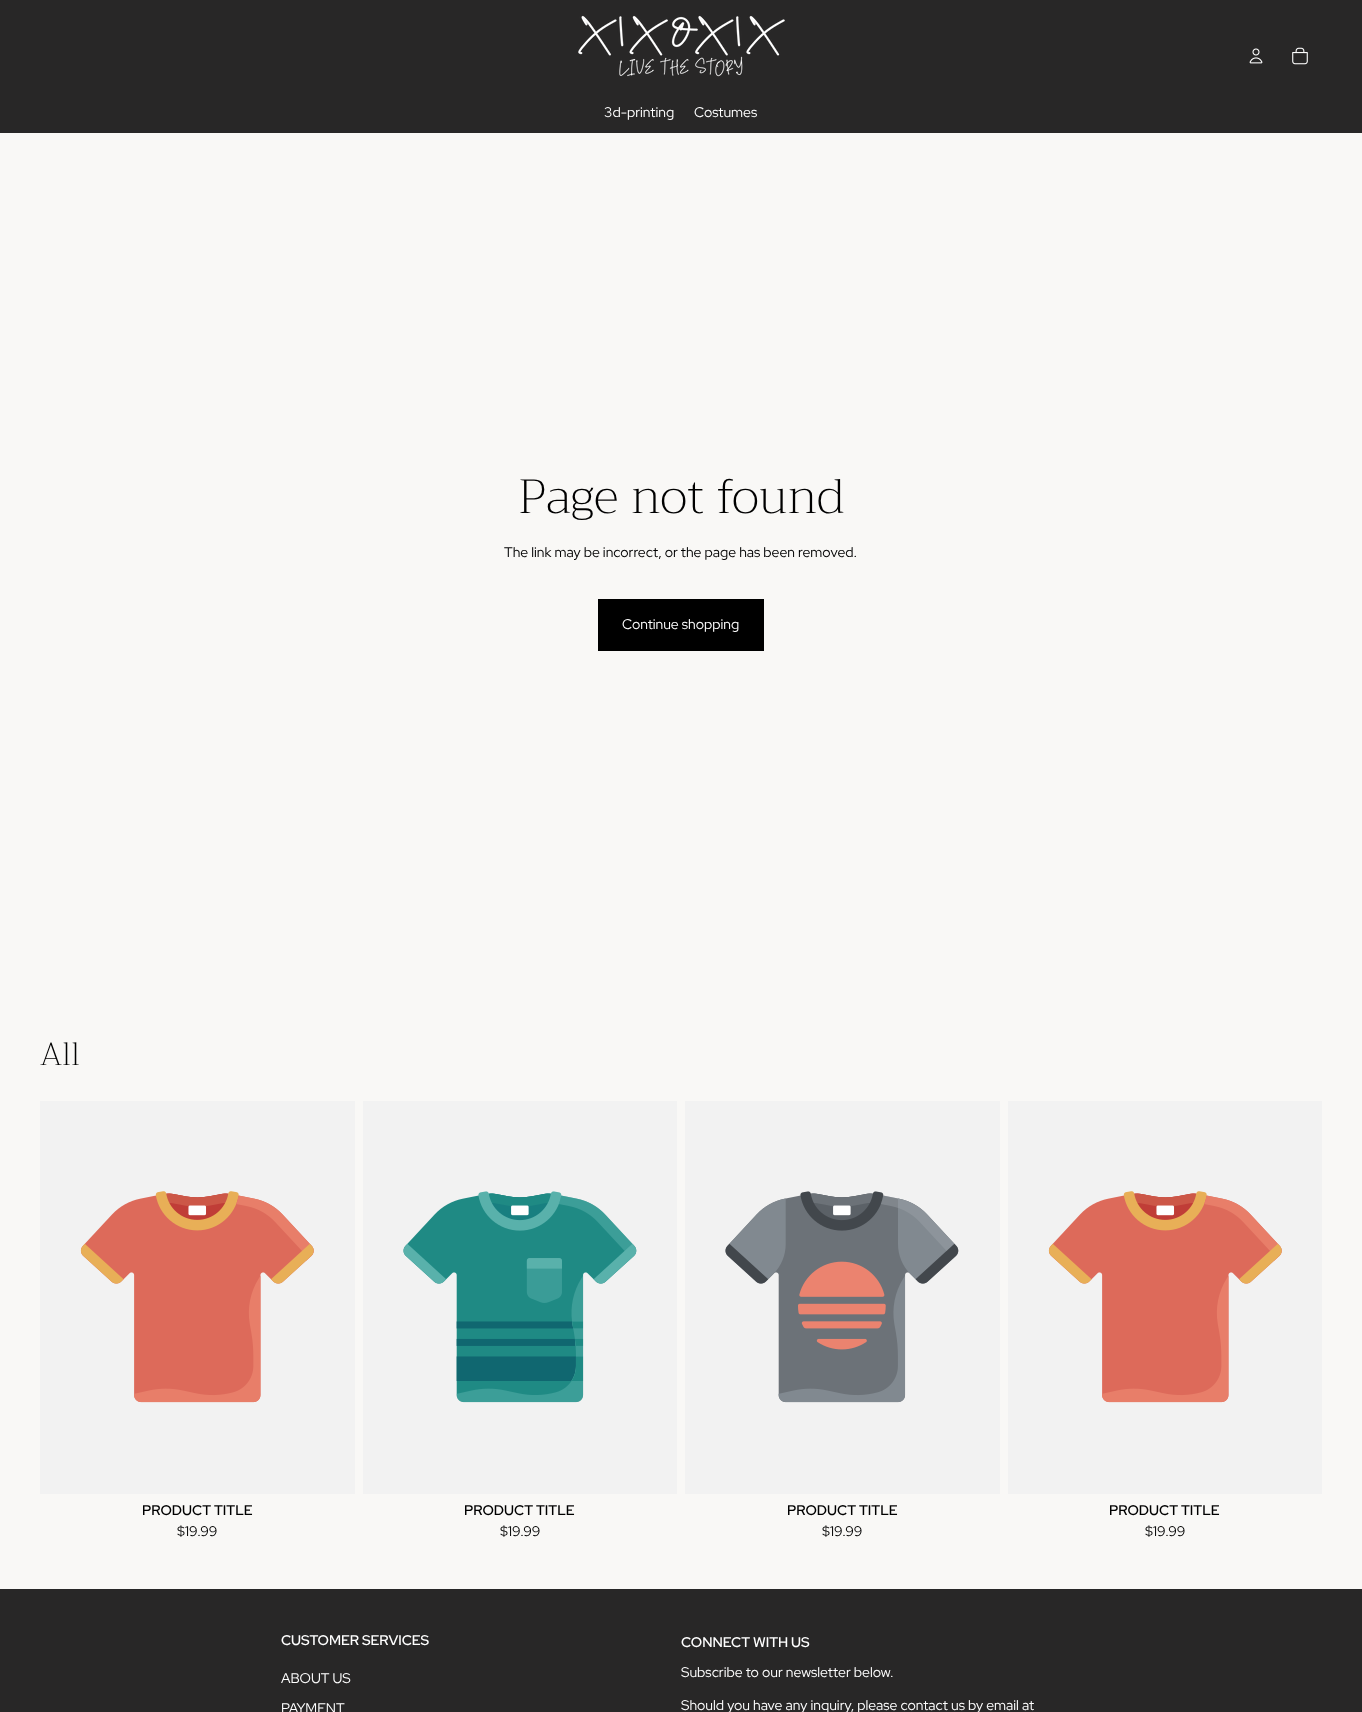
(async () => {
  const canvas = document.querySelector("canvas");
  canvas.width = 1362;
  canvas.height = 1712;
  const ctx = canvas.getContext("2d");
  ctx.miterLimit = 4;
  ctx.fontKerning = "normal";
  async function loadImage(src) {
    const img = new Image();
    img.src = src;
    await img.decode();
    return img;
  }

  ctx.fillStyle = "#f9f8f6";
  ctx.fillRect(0, 0, 1362, 1712);
  ctx.fillStyle = "#282727";
  ctx.fillRect(0, 0, 1362, 133);
  ctx.drawImage(await loadImage("img/1.png"), 578, 15, 207, 62);
  ctx.drawImage(await loadImage("img/2.png"), 1249, 48, 14, 16);
  ctx.drawImage(await loadImage("img/3.png"), 1292, 47, 16, 18);
  ctx.fillStyle = "#000000";
  ctx.fillRect(598, 599, 166, 52);
  ctx.drawImage(await loadImage("img/4.png"), 40, 1101, 315, 393);
  ctx.drawImage(await loadImage("img/5.png"), 363, 1101, 314, 393);
  ctx.drawImage(await loadImage("img/6.png"), 685, 1101, 315, 393);
  ctx.drawImage(await loadImage("img/7.png"), 1008, 1101, 314, 393);
  ctx.fillStyle = "#282727";
  ctx.fillRect(0, 1589, 1362, 123);
  ctx.font = "14px Red Hat Display";
  ctx.fillStyle = "#ffffff";
  ctx.fillText("3d-printing", 604, 117);
  ctx.fillText("Costumes", 694, 117);
  ctx.font = "300 48px Trirong";
  ctx.fillStyle = "#000000";
  ctx.fillText("Page not found", 518, 513);
  ctx.font = "14px Red Hat Display";
  ctx.fillText("The link may be incorrect, or the page has been removed.", 504, 557);
  ctx.fillStyle = "#ffffff";
  ctx.fillText("Continue shopping", 622, 629);
  ctx.font = "300 32px Trirong";
  ctx.fillStyle = "#000000";
  ctx.fillText("All", 40, 1065);
  ctx.font = "600 14px Red Hat Display";
  ctx.fillText("PRODUCT TITLE", 142, 1515);
  ctx.font = "14px Red Hat Display";
  ctx.fillText("$19.99", 177, 1536);
  ctx.font = "600 14px Red Hat Display";
  ctx.fillText("PRODUCT TITLE", 464, 1515);
  ctx.font = "14px Red Hat Display";
  ctx.fillText("$19.99", 500, 1536);
  ctx.font = "600 14px Red Hat Display";
  ctx.fillText("PRODUCT TITLE", 787, 1515);
  ctx.font = "14px Red Hat Display";
  ctx.fillText("$19.99", 822, 1536);
  ctx.font = "600 14px Red Hat Display";
  ctx.fillText("PRODUCT TITLE", 1109, 1515);
  ctx.font = "14px Red Hat Display";
  ctx.fillText("$19.99", 1145, 1536);
  ctx.font = "600 14px Red Hat Display";
  ctx.fillStyle = "#ffffff";
  ctx.fillText("CUSTOMER SERVICES", 281, 1645);
  ctx.font = "14px Red Hat Display";
  ctx.fillText("ABOUT US", 281, 1683);
  ctx.fillText("PAYMENT", 281, 1713);
  ctx.font = "600 14px Red Hat Display";
  ctx.fillText("CONNECT WITH US", 681, 1647);
  ctx.font = "14px Red Hat Display";
  ctx.fillText("Subscribe to our newsletter below.", 681, 1677);
  ctx.fillText("Should you have any inquiry, please contact us by email at", 681, 1710);
})();
